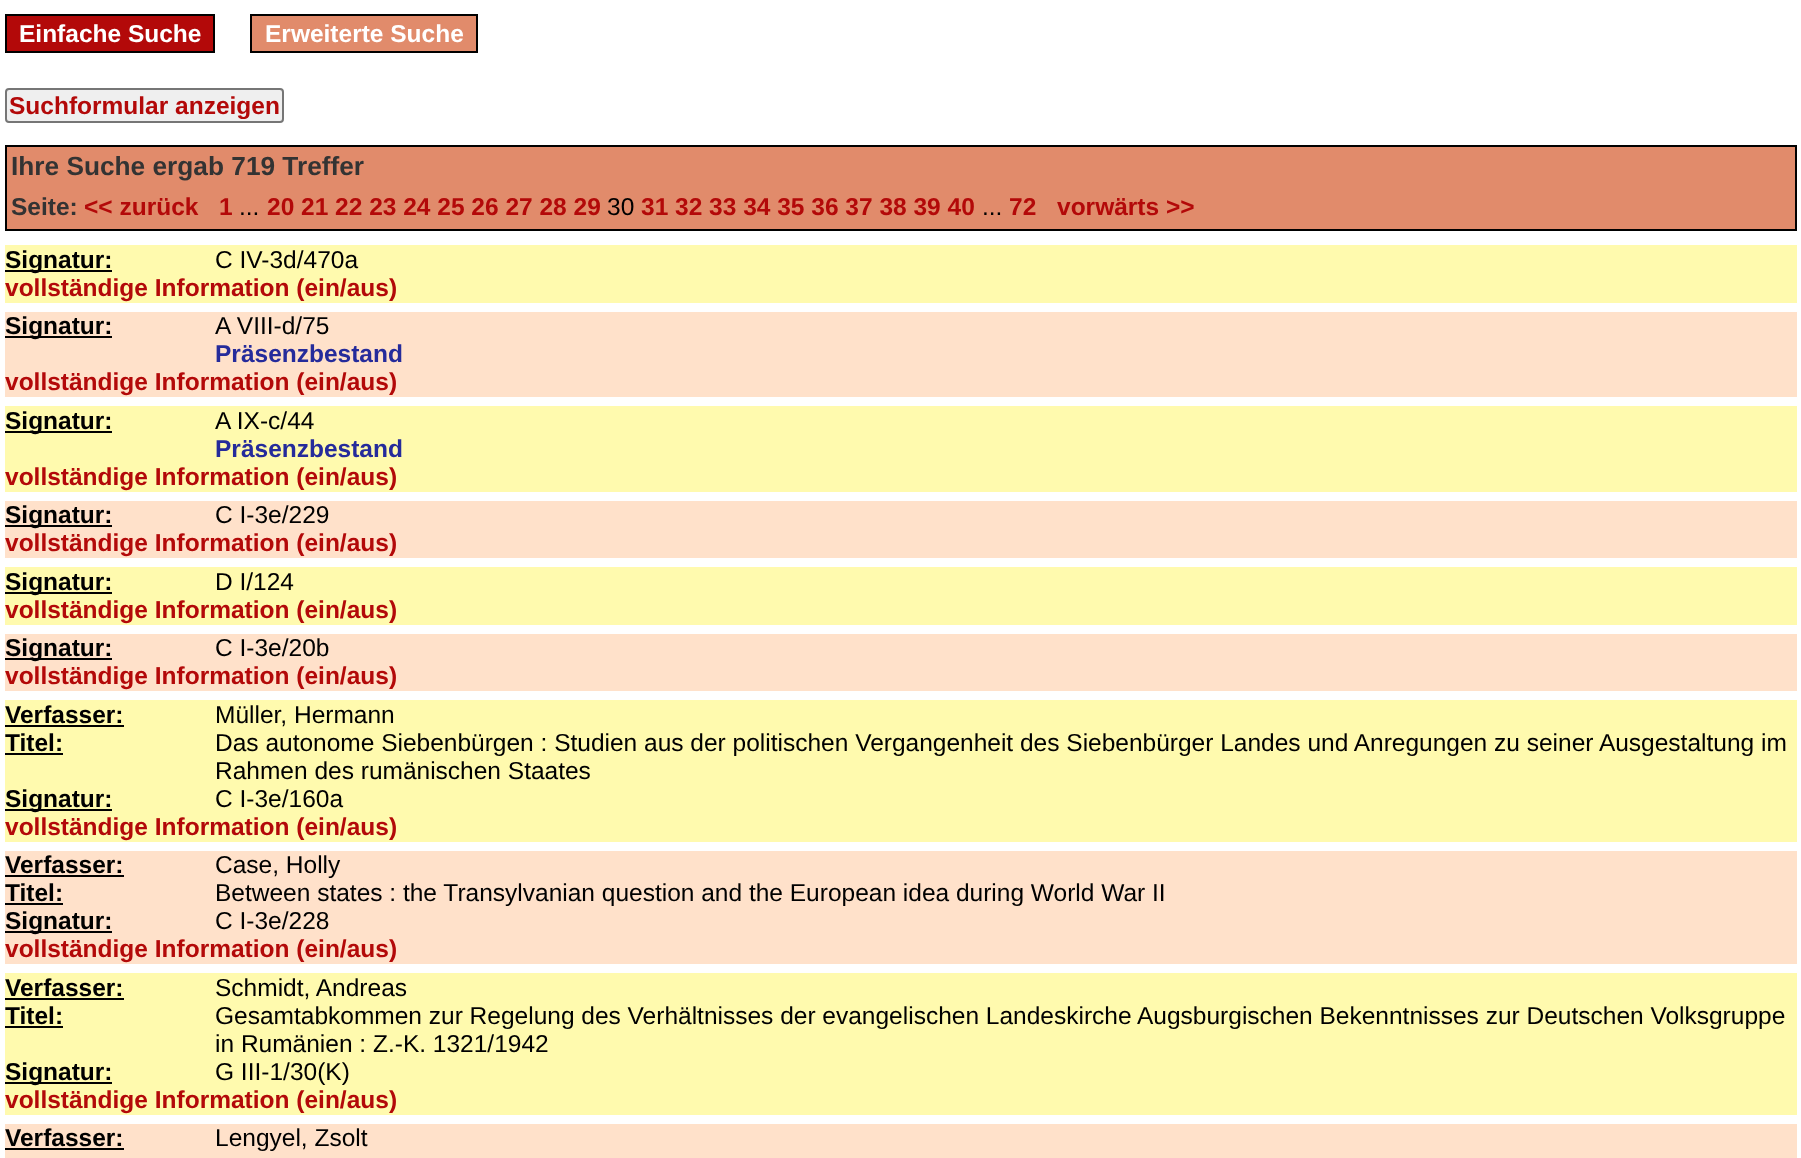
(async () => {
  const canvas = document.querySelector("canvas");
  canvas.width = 1801;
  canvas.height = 1158;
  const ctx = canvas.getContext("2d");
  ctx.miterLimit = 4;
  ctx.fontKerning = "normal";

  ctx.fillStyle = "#ffffff";
  ctx.fillRect(0, 0, 1801, 1158);
  ctx.fillStyle = "#b30909";
  ctx.beginPath();
  ctx.rect(6, 15, 208, 37);
  ctx.fill();
  ctx.strokeStyle = "#000000";
  ctx.lineWidth = 2;
  ctx.stroke();
  ctx.fillStyle = "#e18b6b";
  ctx.beginPath();
  ctx.rect(251, 15, 226, 37);
  ctx.fill();
  ctx.stroke();
  ctx.fillStyle = "#efefef";
  ctx.beginPath();
  ctx.roundRect(6, 89, 277, 33, 3);
  ctx.fill();
  ctx.strokeStyle = "#767676";
  ctx.stroke();
  ctx.fillStyle = "#e18b6b";
  ctx.beginPath();
  ctx.rect(6, 146, 1790, 84);
  ctx.fill();
  ctx.strokeStyle = "#000000";
  ctx.stroke();
  for (const [x, y, w, h, color] of [
    [5, 245, 1792, 58, "#fffaae"],
    [5, 270, 107, 2, "#000000"],
    [5, 312, 1792, 85, "#ffe1ca"],
    [5, 336, 107, 2, "#000000"],
    [5, 406, 1792, 86, "#fffaae"],
    [5, 431, 107, 2, "#000000"],
    [5, 501, 1792, 57, "#ffe1ca"],
    [5, 525, 107, 2, "#000000"],
    [5, 567, 1792, 58, "#fffaae"],
    [5, 592, 107, 2, "#000000"],
    [5, 634, 1792, 57, "#ffe1ca"],
    [5, 658, 107, 2, "#000000"],
    [5, 700, 1792, 142, "#fffaae"],
    [5, 725, 119, 2, "#000000"],
    [5, 753, 58, 2, "#000000"],
    [5, 809, 107, 2, "#000000"],
    [5, 851, 1792, 113, "#ffe1ca"],
    [5, 875, 119, 2, "#000000"],
    [5, 903, 58, 2, "#000000"],
    [5, 931, 107, 2, "#000000"],
    [5, 973, 1792, 142, "#fffaae"],
    [5, 998, 119, 2, "#000000"],
    [5, 1026, 58, 2, "#000000"],
    [5, 1082, 107, 2, "#000000"],
    [5, 1124, 1792, 34, "#ffe1ca"],
    [5, 1148, 119, 2, "#000000"],
  ]) {
    ctx.fillStyle = color;
    ctx.fillRect(x, y, w, h);
  }
  ctx.font = "bold 24.5px Liberation Sans";
  ctx.fillStyle = "#ffffff";
  ctx.fillText("Einfache Suche", 19, 42);
  ctx.fillText("Erweiterte Suche", 265, 42);
  ctx.save();
  ctx.beginPath();
  ctx.rect(9, 91, 271, 28);
  ctx.clip();
  ctx.fillStyle = "#b30909";
  ctx.fillText("Suchformular anzeigen", 9, 114);
  ctx.restore();
  ctx.font = "bold 26.25px Liberation Sans";
  ctx.fillStyle = "#333333";
  ctx.fillText("Ihre Suche ergab 719 Treffer", 11, 175);
  ctx.font = "bold 24.5px Liberation Sans";
  ctx.fillText("Seite:", 11, 215);
  ctx.fillStyle = "#b30909";
  ctx.fillText("<< zurück", 84, 215);
  ctx.fillText("1", 219, 215);
  ctx.font = "24.5px Liberation Sans";
  ctx.fillStyle = "#000000";
  ctx.fillText("...", 239, 215);
  ctx.font = "bold 24.5px Liberation Sans";
  ctx.fillStyle = "#b30909";
  ctx.fillText("20 21 22 23 24 25 26 27 28 29", 267, 215);
  ctx.font = "24.5px Liberation Sans";
  ctx.fillStyle = "#000000";
  ctx.fillText("30", 607, 215);
  ctx.font = "bold 24.5px Liberation Sans";
  ctx.fillStyle = "#b30909";
  ctx.fillText("31 32 33 34 35 36 37 38 39 40", 641, 215);
  ctx.font = "24.5px Liberation Sans";
  ctx.fillStyle = "#000000";
  ctx.fillText("...", 982, 215);
  ctx.font = "bold 24.5px Liberation Sans";
  ctx.fillStyle = "#b30909";
  ctx.fillText("72", 1009, 215);
  ctx.fillText("vorwärts >>", 1057, 215);
  ctx.fillStyle = "#000000";
  ctx.fillText("Signatur:", 5, 268);
  ctx.font = "24.5px Liberation Sans";
  ctx.fillText("C IV-3d/470a", 215, 268);
  ctx.font = "bold 24.5px Liberation Sans";
  ctx.fillStyle = "#b30909";
  ctx.fillText("vollständige Information (ein/aus)", 5, 296);
  ctx.fillStyle = "#000000";
  ctx.fillText("Signatur:", 5, 334);
  ctx.font = "24.5px Liberation Sans";
  ctx.fillText("A VIII-d/75", 215, 334);
  ctx.font = "bold 24.5px Liberation Sans";
  ctx.fillStyle = "#252b9b";
  ctx.fillText("Präsenzbestand", 215, 362);
  ctx.fillStyle = "#b30909";
  ctx.fillText("vollständige Information (ein/aus)", 5, 390);
  ctx.fillStyle = "#000000";
  ctx.fillText("Signatur:", 5, 429);
  ctx.font = "24.5px Liberation Sans";
  ctx.fillText("A IX-c/44", 215, 429);
  ctx.font = "bold 24.5px Liberation Sans";
  ctx.fillStyle = "#252b9b";
  ctx.fillText("Präsenzbestand", 215, 457);
  ctx.fillStyle = "#b30909";
  ctx.fillText("vollständige Information (ein/aus)", 5, 485);
  ctx.fillStyle = "#000000";
  ctx.fillText("Signatur:", 5, 523);
  ctx.font = "24.5px Liberation Sans";
  ctx.fillText("C I-3e/229", 215, 523);
  ctx.font = "bold 24.5px Liberation Sans";
  ctx.fillStyle = "#b30909";
  ctx.fillText("vollständige Information (ein/aus)", 5, 551);
  ctx.fillStyle = "#000000";
  ctx.fillText("Signatur:", 5, 590);
  ctx.font = "24.5px Liberation Sans";
  ctx.fillText("D I/124", 215, 590);
  ctx.font = "bold 24.5px Liberation Sans";
  ctx.fillStyle = "#b30909";
  ctx.fillText("vollständige Information (ein/aus)", 5, 618);
  ctx.fillStyle = "#000000";
  ctx.fillText("Signatur:", 5, 656);
  ctx.font = "24.5px Liberation Sans";
  ctx.fillText("C I-3e/20b", 215, 656);
  ctx.font = "bold 24.5px Liberation Sans";
  ctx.fillStyle = "#b30909";
  ctx.fillText("vollständige Information (ein/aus)", 5, 684);
  ctx.fillStyle = "#000000";
  ctx.fillText("Verfasser:", 5, 723);
  ctx.font = "24.5px Liberation Sans";
  ctx.fillText("Müller, Hermann", 215, 723);
  ctx.font = "bold 24.5px Liberation Sans";
  ctx.fillText("Titel:", 5, 751);
  ctx.font = "24.5px Liberation Sans";
  ctx.fillText("Das autonome Siebenbürgen : Studien aus der politischen Vergangenheit des Siebenbürger Landes und Anregungen zu seiner Ausgestaltung im", 215, 751);
  ctx.fillText("Rahmen des rumänischen Staates", 215, 779);
  ctx.font = "bold 24.5px Liberation Sans";
  ctx.fillText("Signatur:", 5, 807);
  ctx.font = "24.5px Liberation Sans";
  ctx.fillText("C I-3e/160a", 215, 807);
  ctx.font = "bold 24.5px Liberation Sans";
  ctx.fillStyle = "#b30909";
  ctx.fillText("vollständige Information (ein/aus)", 5, 835);
  ctx.fillStyle = "#000000";
  ctx.fillText("Verfasser:", 5, 873);
  ctx.font = "24.5px Liberation Sans";
  ctx.fillText("Case, Holly", 215, 873);
  ctx.font = "bold 24.5px Liberation Sans";
  ctx.fillText("Titel:", 5, 901);
  ctx.font = "24.5px Liberation Sans";
  ctx.fillText("Between states : the Transylvanian question and the European idea during World War II", 215, 901);
  ctx.font = "bold 24.5px Liberation Sans";
  ctx.fillText("Signatur:", 5, 929);
  ctx.font = "24.5px Liberation Sans";
  ctx.fillText("C I-3e/228", 215, 929);
  ctx.font = "bold 24.5px Liberation Sans";
  ctx.fillStyle = "#b30909";
  ctx.fillText("vollständige Information (ein/aus)", 5, 957);
  ctx.fillStyle = "#000000";
  ctx.fillText("Verfasser:", 5, 996);
  ctx.font = "24.5px Liberation Sans";
  ctx.fillText("Schmidt, Andreas", 215, 996);
  ctx.font = "bold 24.5px Liberation Sans";
  ctx.fillText("Titel:", 5, 1024);
  ctx.font = "24.5px Liberation Sans";
  ctx.fillText("Gesamtabkommen zur Regelung des Verhältnisses der evangelischen Landeskirche Augsburgischen Bekenntnisses zur Deutschen Volksgruppe", 215, 1024);
  ctx.fillText("in Rumänien : Z.-K. 1321/1942", 215, 1052);
  ctx.font = "bold 24.5px Liberation Sans";
  ctx.fillText("Signatur:", 5, 1080);
  ctx.font = "24.5px Liberation Sans";
  ctx.fillText("G III-1/30(K)", 215, 1080);
  ctx.font = "bold 24.5px Liberation Sans";
  ctx.fillStyle = "#b30909";
  ctx.fillText("vollständige Information (ein/aus)", 5, 1108);
  ctx.fillStyle = "#000000";
  ctx.fillText("Verfasser:", 5, 1146);
  ctx.font = "24.5px Liberation Sans";
  ctx.fillText("Lengyel, Zsolt", 215, 1146);
})();
